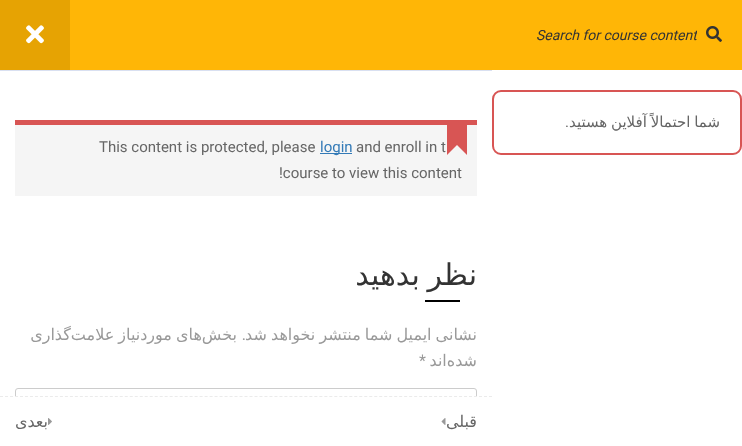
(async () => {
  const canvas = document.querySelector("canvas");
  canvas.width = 742;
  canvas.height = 446;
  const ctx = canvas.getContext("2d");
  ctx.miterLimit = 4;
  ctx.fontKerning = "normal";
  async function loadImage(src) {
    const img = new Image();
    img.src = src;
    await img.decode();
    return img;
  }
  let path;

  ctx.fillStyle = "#ffffff";
  ctx.fillRect(0, 0, 742, 446);
  ctx.fillStyle = "#ffb606";
  ctx.fillRect(70, 0, 672, 70);
  ctx.drawImage(await loadImage("img/1.png"), 706, 26, 16, 16);
  ctx.beginPath();
  ctx.roundRect(493, 91, 248, 63, 8);
  ctx.strokeStyle = "#d85554";
  ctx.lineWidth = 2;
  ctx.stroke();
  ctx.fillStyle = "#d9e0f1";
  ctx.fillRect(0, 70, 492, 1);
  ctx.fillStyle = "#e6a303";
  ctx.fillRect(0, 0, 70, 70);
  ctx.drawImage(await loadImage("img/2.png"), 26, 25, 18, 19);
  for (const [x, y, w, h, color] of [
    [15, 125, 462, 71, "#f5f5f5"],
    [15, 120, 462, 5, "#d85554"],
    [447, 125, 20, 30, "#d85554"],
    [320, 153, 32, 1, "#337ab7"],
  ]) {
    ctx.fillStyle = color;
    ctx.fillRect(x, y, w, h);
  }
  ctx.fillStyle = "#f5f5f5";
  path = new Path2D("M467 155H447L457 145Z");
  ctx.fill(path);
  ctx.fillStyle = "#000000";
  ctx.fillRect(425, 300, 35, 2);
  ctx.save();
  ctx.beginPath();
  ctx.rect(0, 70, 492, 326);
  ctx.clip();
  ctx.beginPath();
  ctx.roundRect(15.5, 388.5, 461, 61, 2.5);
  ctx.strokeStyle = "#cccccc";
  ctx.lineWidth = 1;
  ctx.stroke();
  ctx.restore();
  path = new Path2D("M0 396.5H492");
  ctx.strokeStyle = "#ebebeb";
  ctx.lineWidth = 1;
  ctx.setLineDash([3, 1.99]);
  ctx.stroke(path);
  ctx.drawImage(await loadImage("img/3.png"), 441, 418, 5, 7);
  ctx.drawImage(await loadImage("img/4.png"), 48, 418, 4, 7);
  ctx.save();
  ctx.beginPath();
  ctx.rect(492, 27, 205, 16);
  ctx.clip();
  ctx.font = "italic 14px Roboto";
  ctx.fillStyle = "#333333";
  ctx.fillText("Search for course content", 536, 40);
  ctx.restore();
  ctx.wordSpacing = "-1px";
  ctx.direction = "rtl";
  ctx.font = "15px DejaVu Sans";
  ctx.fillStyle = "#666666";
  ctx.fillText("شما احتمالاً آفلاین هستید", 720, 127);
  ctx.wordSpacing = "0px";
  ctx.font = "15px Roboto";
  ctx.fillText(".", 569, 127);
  ctx.direction = "ltr";
  ctx.fillText("and enroll in t", 356, 152);
  ctx.fillStyle = "#337ab7";
  ctx.fillText("login", 320, 152);
  ctx.fillStyle = "#666666";
  ctx.fillText("This content is protected, please", 99, 152);
  ctx.fillText("!course to view this content", 279, 178);
  ctx.wordSpacing = "-2px";
  ctx.direction = "rtl";
  ctx.font = "30px DejaVu Sans";
  ctx.fillStyle = "#333333";
  ctx.fillText("نظر بدهید", 477, 285);
  ctx.wordSpacing = "-1px";
  ctx.font = "16px DejaVu Sans";
  ctx.fillStyle = "#999999";
  ctx.fillText("نشانی ایمیل شما منتشر نخواهد شد", 477, 340);
  ctx.wordSpacing = "0px";
  ctx.font = "16px Roboto";
  ctx.fillText(".", 246, 340);
  ctx.wordSpacing = "-1px";
  ctx.font = "16px DejaVu Sans";
  ctx.fillText("بخش‌های موردنیاز علامت‌گذاری", 237, 340);
  ctx.wordSpacing = "0px";
  ctx.fillText("شده‌اند", 477, 366);
  ctx.direction = "ltr";
  ctx.font = "16px Roboto";
  ctx.fillText("*", 419, 366);
  ctx.direction = "rtl";
  ctx.font = "16px DejaVu Sans";
  ctx.fillStyle = "#666666";
  ctx.fillText("قبلی", 477, 427);
  ctx.fillText("بعدی", 48, 427);
})();
